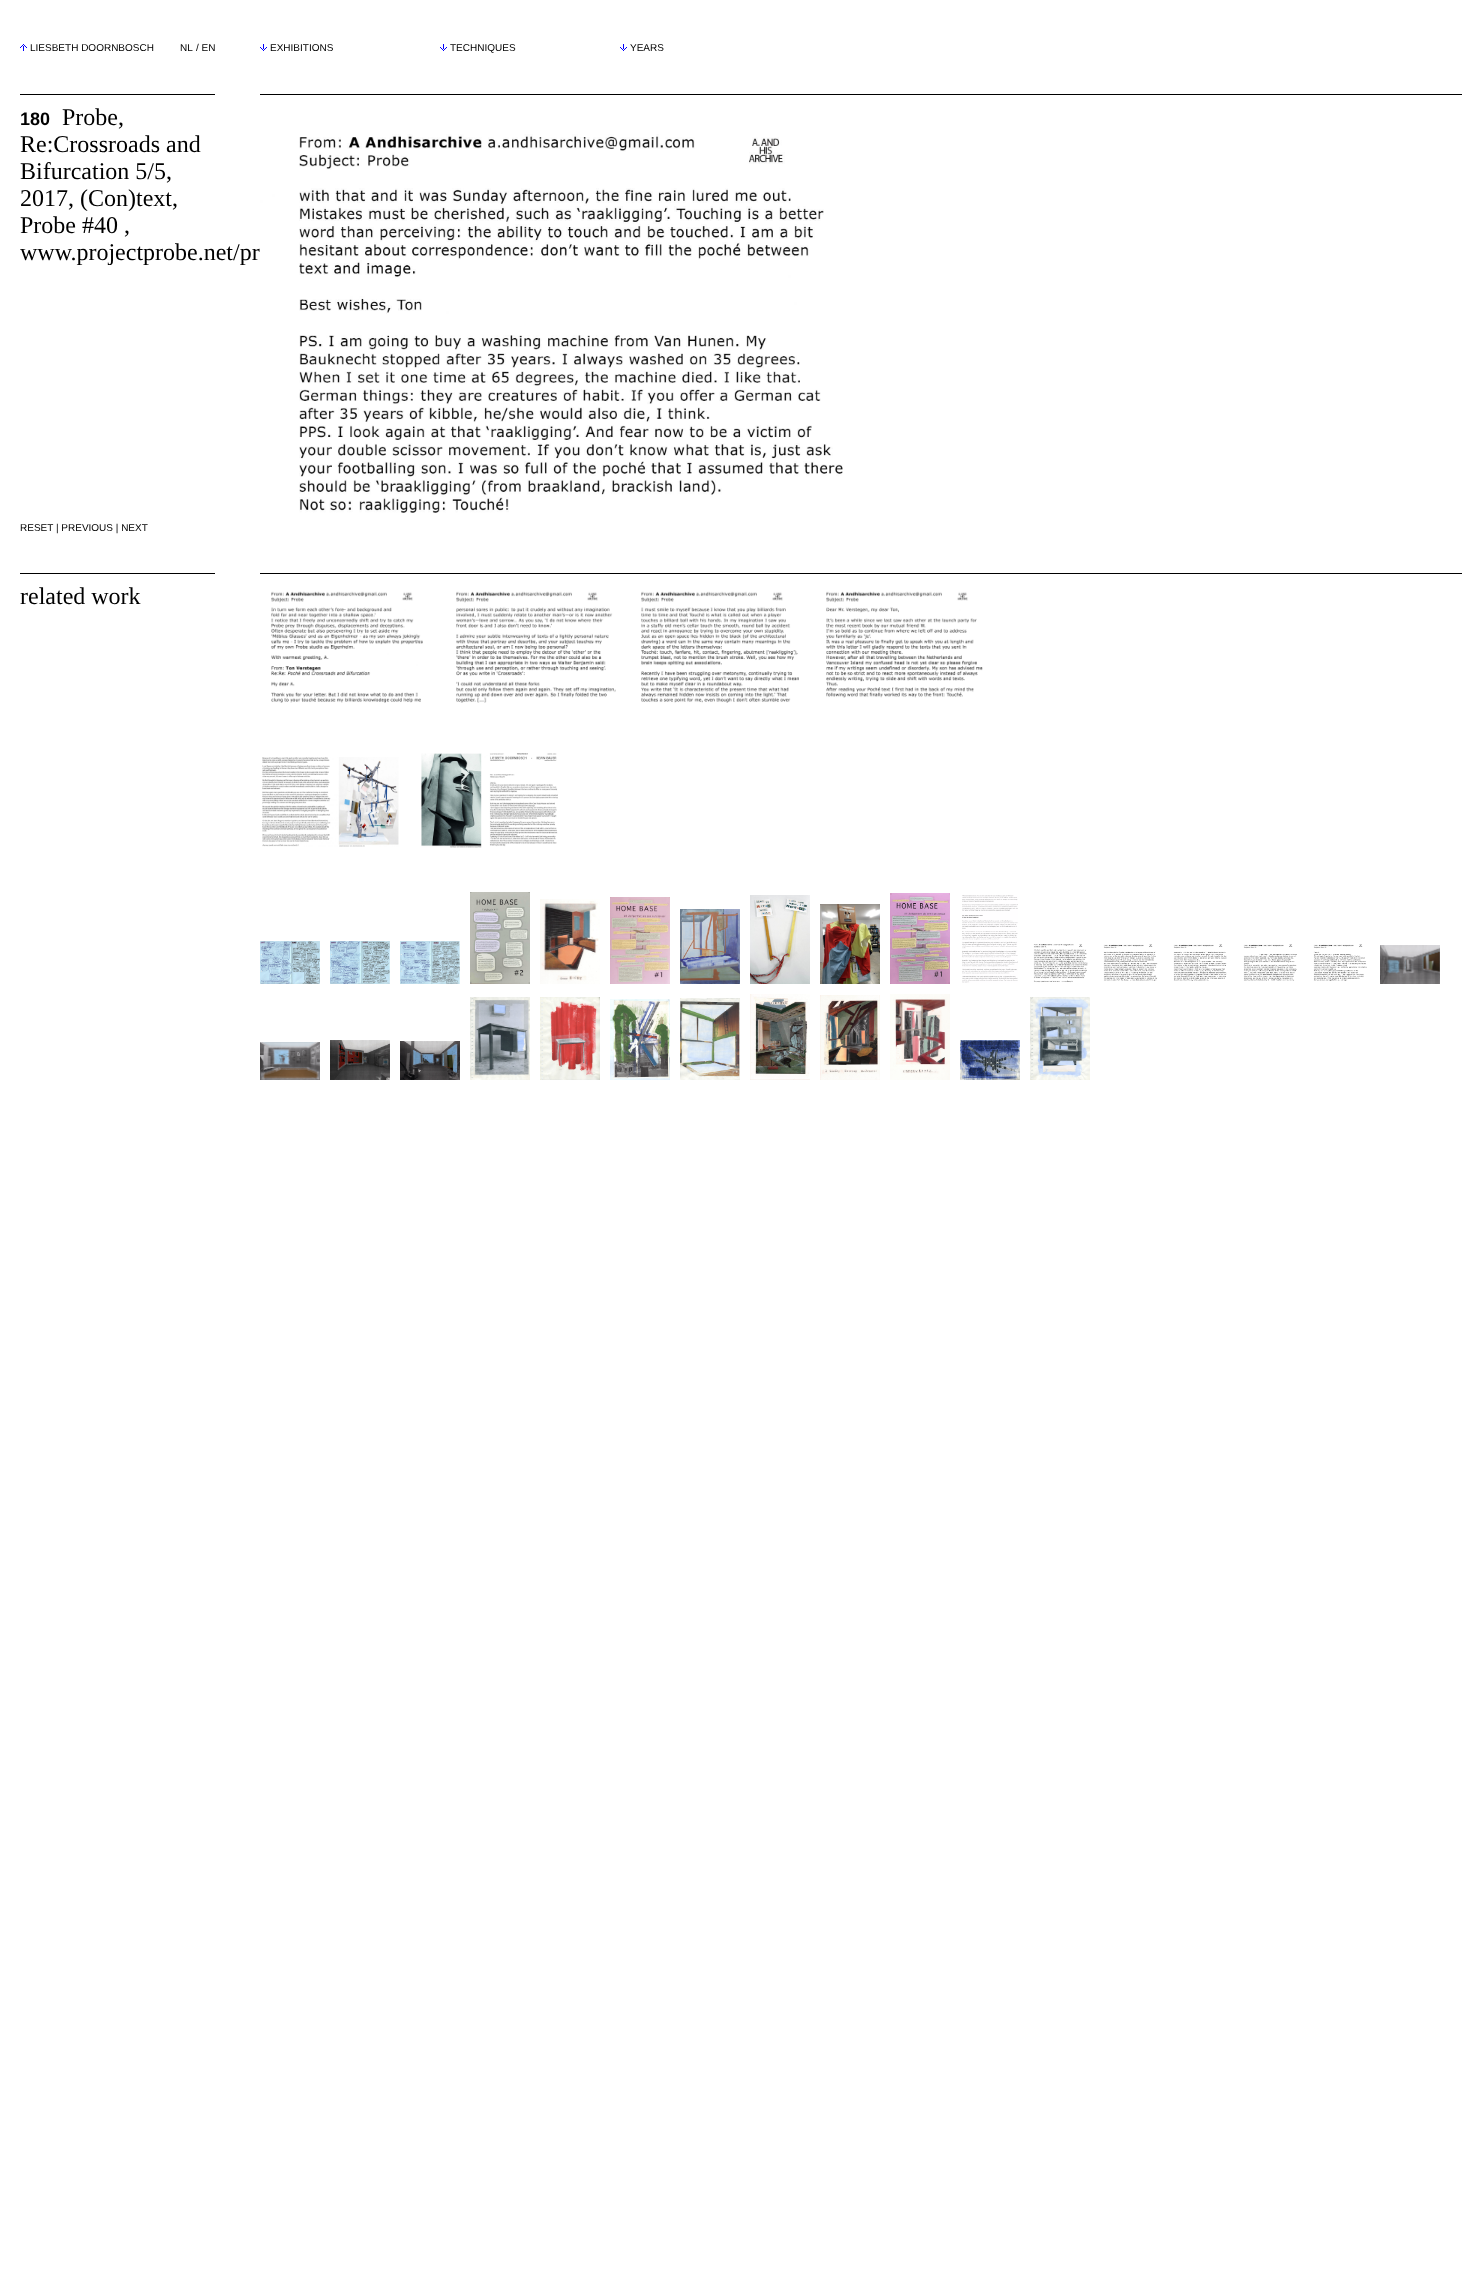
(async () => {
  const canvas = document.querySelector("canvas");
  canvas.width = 1482;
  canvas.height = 2270;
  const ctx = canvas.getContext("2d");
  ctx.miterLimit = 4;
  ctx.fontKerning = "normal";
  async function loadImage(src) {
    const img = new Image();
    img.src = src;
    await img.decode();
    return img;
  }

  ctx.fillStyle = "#ffffff";
  ctx.fillRect(0, 0, 1482, 2270);
  ctx.drawImage(await loadImage("img/1.png"), 20, 44, 7, 7);
  ctx.drawImage(await loadImage("img/2.png"), 260, 44, 7, 7);
  ctx.drawImage(await loadImage("img/2.png"), 440, 44, 7, 7);
  ctx.drawImage(await loadImage("img/2.png"), 620, 44, 7, 7);
  ctx.fillStyle = "#000000";
  ctx.fillRect(20, 94, 195, 1);
  ctx.fillRect(260, 94, 1202, 1);
  ctx.drawImage(await loadImage("img/3.png"), 260, 134, 583, 379);
  ctx.fillRect(20, 573, 195, 1);
  ctx.fillRect(260, 573, 1202, 1);
  ctx.drawImage(await loadImage("img/4.png"), 271, 591, 152, 112);
  ctx.drawImage(await loadImage("img/5.png"), 456, 591, 160, 112);
  ctx.drawImage(await loadImage("img/6.png"), 641, 591, 158, 112);
  ctx.drawImage(await loadImage("img/7.png"), 826, 591, 157, 107);
  ctx.drawImage(await loadImage("img/8.png"), 262, 757, 137, 90);
  ctx.drawImage(await loadImage("img/9.png"), 421, 753, 137, 95);
  ctx.drawImage(await loadImage("img/10.png"), 260, 941, 60, 43);
  ctx.drawImage(await loadImage("img/11.png"), 330, 941, 60, 43);
  ctx.drawImage(await loadImage("img/12.png"), 400, 941, 60, 43);
  ctx.drawImage(await loadImage("img/13.png"), 470, 892, 60, 92);
  ctx.drawImage(await loadImage("img/14.png"), 540, 899, 60, 85);
  ctx.drawImage(await loadImage("img/15.png"), 610, 897, 60, 87);
  ctx.drawImage(await loadImage("img/16.png"), 680, 909, 60, 75);
  ctx.drawImage(await loadImage("img/17.png"), 750, 895, 60, 89);
  ctx.drawImage(await loadImage("img/18.png"), 820, 904, 60, 80);
  ctx.drawImage(await loadImage("img/19.png"), 890, 893, 60, 91);
  ctx.drawImage(await loadImage("img/20.png"), 962, 895, 56, 88);
  ctx.drawImage(await loadImage("img/21.png"), 1033, 944, 55, 39);
  ctx.drawImage(await loadImage("img/22.png"), 1103, 944, 55, 37);
  ctx.drawImage(await loadImage("img/23.png"), 1173, 944, 54, 37);
  ctx.drawImage(await loadImage("img/24.png"), 1243, 944, 54, 37);
  ctx.drawImage(await loadImage("img/25.png"), 1313, 944, 54, 37);
  ctx.drawImage(await loadImage("img/26.png"), 1380, 945, 60, 39);
  ctx.drawImage(await loadImage("img/27.png"), 260, 1042, 60, 38);
  ctx.drawImage(await loadImage("img/28.png"), 330, 1040, 60, 40);
  ctx.drawImage(await loadImage("img/29.png"), 400, 1041, 60, 39);
  ctx.drawImage(await loadImage("img/30.png"), 470, 997, 60, 83);
  ctx.drawImage(await loadImage("img/31.png"), 540, 997, 60, 83);
  ctx.drawImage(await loadImage("img/32.png"), 610, 999, 60, 81);
  ctx.drawImage(await loadImage("img/33.png"), 680, 998, 60, 82);
  ctx.drawImage(await loadImage("img/34.png"), 750, 994, 60, 86);
  ctx.drawImage(await loadImage("img/35.png"), 820, 995, 60, 85);
  ctx.drawImage(await loadImage("img/36.png"), 890, 994, 60, 86);
  ctx.drawImage(await loadImage("img/37.png"), 960, 1040, 60, 40);
  ctx.drawImage(await loadImage("img/38.png"), 1030, 997, 60, 83);
  ctx.font = "10px Liberation Sans";
  for (const [text, x, y] of [
    ["LIESBETH DOORNBOSCH", 30, 51],
    ["NL", 180, 51],
    ["/ EN", 196, 51],
    ["EXHIBITIONS", 270, 51],
    ["TECHNIQUES", 450, 51],
    ["YEARS", 630, 51],
  ]) {
    ctx.fillText(text, x, y);
  }
  ctx.font = "bold 18px Liberation Sans";
  ctx.fillText("180", 20, 125);
  ctx.font = "24px Liberation Serif";
  for (const [text, x, y] of [
    ["Probe,", 62, 125],
    ["Re:Crossroads and", 20, 152],
    ["Bifurcation 5/5,", 20, 179],
    ["2017, (Con)text,", 20, 206],
    ["Probe #40 ,", 20, 233],
    ["www.projectprobe.net/pr", 20, 260],
  ]) {
    ctx.fillText(text, x, y);
  }
  ctx.font = "10px Liberation Sans";
  ctx.fillText("RESET | PREVIOUS | NEXT", 20, 531);
  ctx.font = "24px Liberation Serif";
  ctx.fillText("related work", 20, 604);
})();
